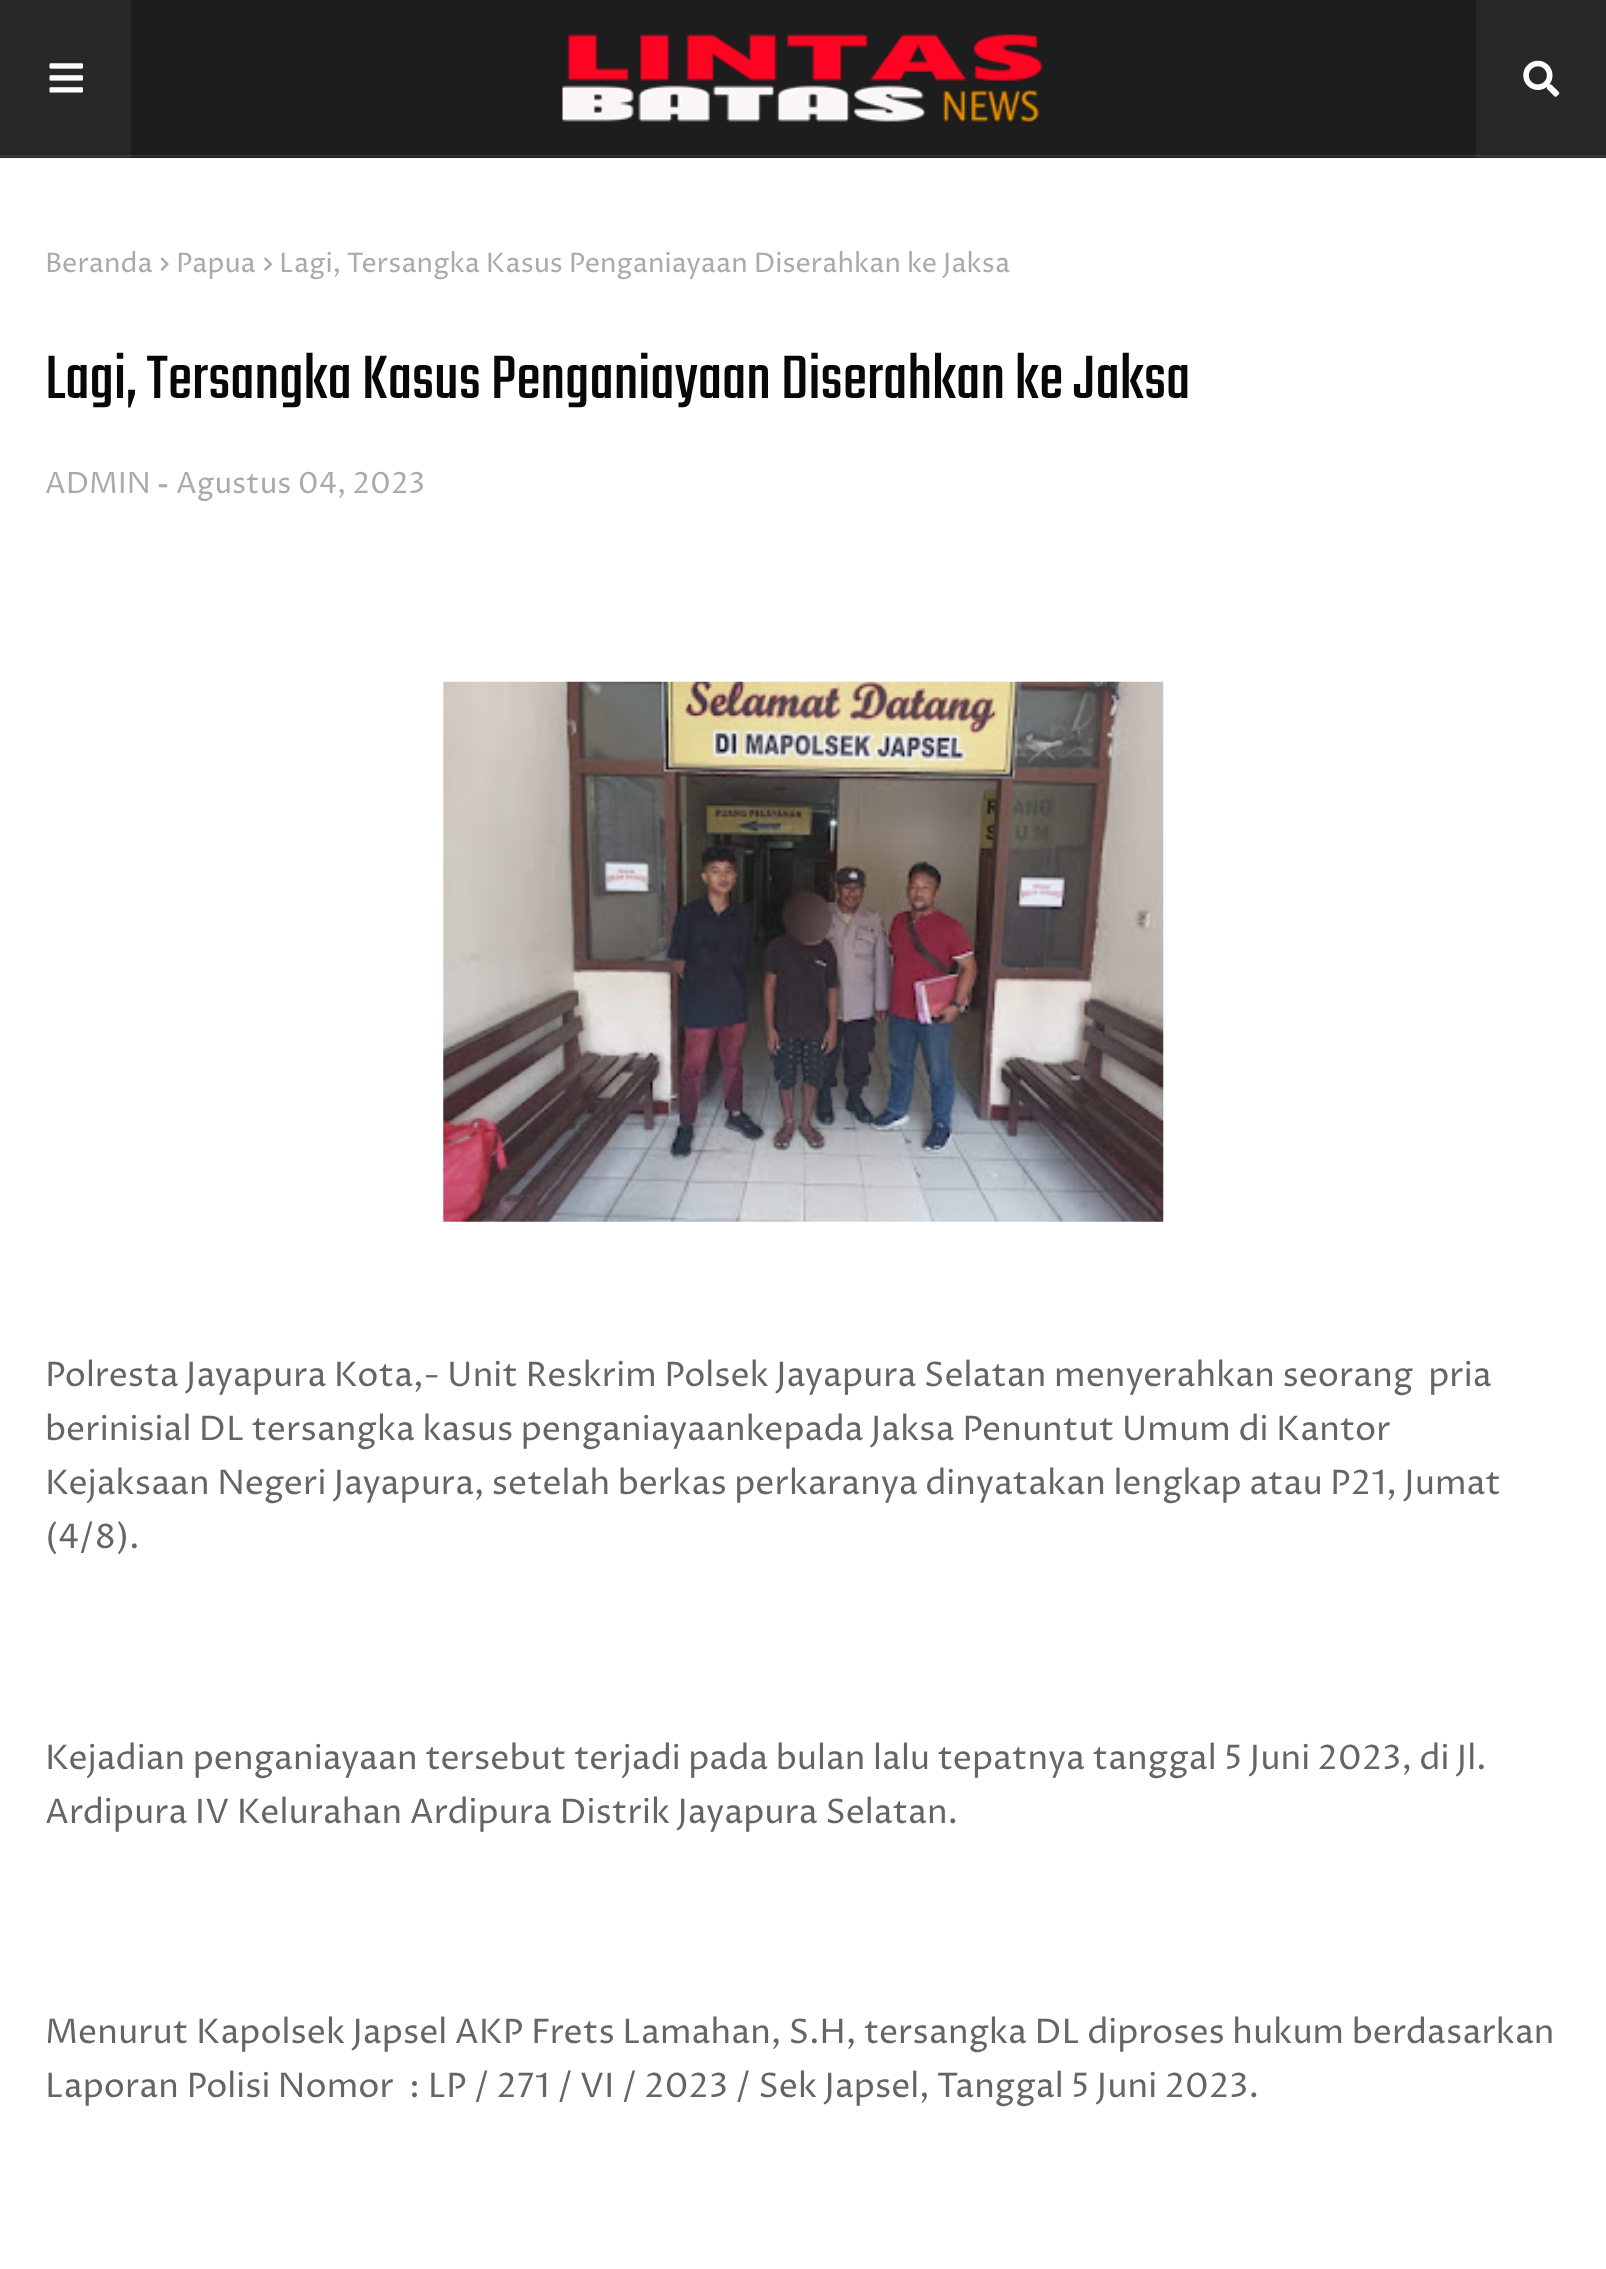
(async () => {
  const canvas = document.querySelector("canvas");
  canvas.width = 1606;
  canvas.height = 2269;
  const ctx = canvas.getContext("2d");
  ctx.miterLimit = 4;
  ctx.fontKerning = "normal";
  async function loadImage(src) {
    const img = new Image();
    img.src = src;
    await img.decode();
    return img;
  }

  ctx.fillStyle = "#ffffff";
  ctx.fillRect(0, 0, 1606, 2269);
  for (const [x, y, w, h, color] of [
    [131, 0, 1345, 158, "#1d1d1d"],
    [0, 0, 131, 158, "#282828"],
    [1476, 0, 130, 158, "#282828"],
    [131, 155, 1345, 2, "#303030"],
    [0, 155, 131, 2, "#3a3a3a"],
    [1476, 155, 130, 2, "#3a3a3a"],
  ]) {
    ctx.fillStyle = color;
    ctx.fillRect(x, y, w, h);
  }
  ctx.drawImage(await loadImage("img/1.png"), 49, 63, 34, 30);
  ctx.drawImage(await loadImage("img/2.png"), 562, 34, 481, 88);
  ctx.drawImage(await loadImage("img/3.png"), 1523, 60, 37, 37);
  ctx.drawImage(await loadImage("img/4.png"), 160, 257, 9, 14);
  ctx.drawImage(await loadImage("img/5.png"), 264, 257, 9, 14);
  ctx.drawImage(await loadImage("img/6.png"), 443, 681, 721, 541);
  ctx.font = "27px Proza Libre";
  ctx.fillStyle = "#aaaaaa";
  for (const [text, x, y] of [
    ["Beranda", 45, 272],
    ["Papua", 176, 272],
    ["Lagi, Tersangka Kasus Penganiayaan Diserahkan ke Jaksa", 279, 272],
  ]) {
    ctx.fillText(text, x, y);
  }
  ctx.font = "67.5px Teko";
  ctx.fillStyle = "#080808";
  ctx.fillText("Lagi, Tersangka Kasus Penganiayaan Diserahkan ke Jaksa", 45, 398);
  ctx.font = "29.25px Proza Libre";
  ctx.fillStyle = "#aaaaaa";
  ctx.fillText("ADMIN", 45, 493);
  ctx.font = "800 25px Proza Libre";
  ctx.fillText("-", 157, 493);
  ctx.font = "29.25px Proza Libre";
  ctx.fillText("Agustus 04, 2023", 176, 493);
  ctx.font = "33.75px Proza Libre";
  ctx.fillStyle = "#656565";
  for (const [text, x, y] of [
    ["Polresta Jayapura Kota,- Unit Reskrim Polsek Jayapura Selatan menyerahkan seorang  pria", 45, 1386],
    ["berinisial DL tersangka kasus penganiayaankepada Jaksa Penuntut Umum di Kantor", 45, 1440],
    ["Kejaksaan Negeri Jayapura, setelah berkas perkaranya dinyatakan lengkap atau P21, Jumat", 45, 1494],
    ["(4/8).", 45, 1548],
    ["Kejadian penganiayaan tersebut terjadi pada bulan lalu tepatnya tanggal 5 Juni 2023, di Jl.", 45, 1769],
    ["Ardipura IV Kelurahan Ardipura Distrik Jayapura Selatan.", 45, 1823],
    ["Menurut Kapolsek Japsel AKP Frets Lamahan, S.H, tersangka DL diproses hukum berdasarkan", 45, 2043],
    ["Laporan Polisi Nomor  : LP / 271 / VI / 2023 / Sek Japsel, Tanggal 5 Juni 2023.", 45, 2097],
  ]) {
    ctx.fillText(text, x, y);
  }
})();
